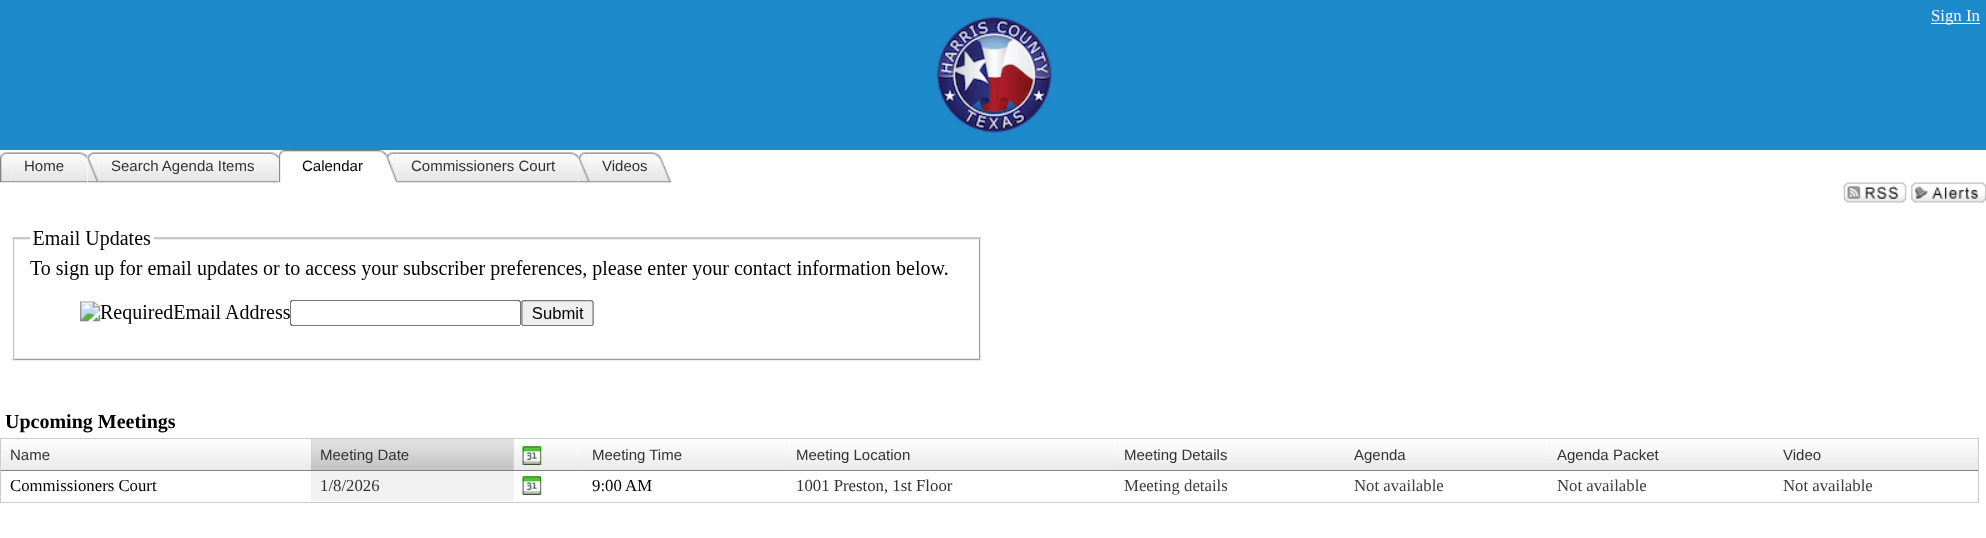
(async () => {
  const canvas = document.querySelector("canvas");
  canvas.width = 1986;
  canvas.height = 538;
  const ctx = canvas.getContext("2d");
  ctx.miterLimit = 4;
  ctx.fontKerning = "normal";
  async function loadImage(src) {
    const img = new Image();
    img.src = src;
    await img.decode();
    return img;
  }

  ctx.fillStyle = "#ffffff";
  ctx.fillRect(0, 0, 1986, 538);
  ctx.fillStyle = "#1d8acb";
  ctx.fillRect(0, 0, 1986, 150);
  ctx.drawImage(await loadImage("img/1.png"), 936, 16, 116, 117);
  ctx.fillStyle = "#ffffff";
  ctx.fillRect(1931, 23, 49, 1);
  ctx.drawImage(await loadImage("img/2.png"), 0, 152, 12, 31);
  ctx.drawImage(await loadImage("img/3.png"), 11, 152, 77, 31);
  ctx.drawImage(await loadImage("img/4.png"), 87, 152, 12, 31);
  ctx.drawImage(await loadImage("img/5.png"), 98, 152, 181, 31);
  ctx.drawImage(await loadImage("img/6.png"), 278, 150, 13, 33);
  ctx.drawImage(await loadImage("img/7.png"), 290, 150, 97, 7);
  ctx.drawImage(await loadImage("img/8.png"), 386, 152, 12, 31);
  ctx.drawImage(await loadImage("img/9.png"), 397, 152, 182, 31);
  ctx.drawImage(await loadImage("img/10.png"), 578, 152, 13, 31);
  ctx.drawImage(await loadImage("img/11.png"), 590, 152, 82, 31);
  ctx.drawImage(await loadImage("img/12.png"), 1843, 182, 64, 21);
  ctx.drawImage(await loadImage("img/13.png"), 1911, 182, 75, 21);
  ctx.drawImage(await loadImage("img/14.png"), 12, 231, 970, 131);
  ctx.strokeStyle = "#cccccc";
  ctx.strokeRect(0.5, 438.5, 1978, 64);
  ctx.fillStyle = "#eaeaea";
  ctx.fillRect(1, 439, 310, 31);
  ctx.drawImage(await loadImage("img/15.png"), 1, 439, 310, 31);
  ctx.fillStyle = "#828282";
  ctx.fillRect(1, 470, 582, 1);
  ctx.fillStyle = "#c4c4c4";
  ctx.fillRect(311, 439, 203, 31);
  ctx.drawImage(await loadImage("img/16.png"), 311, 439, 203, 26);
  ctx.fillStyle = "#eaeaea";
  ctx.fillRect(514, 439, 274, 31);
  ctx.drawImage(await loadImage("img/17.png"), 513, 439, 70, 31);
  ctx.drawImage(await loadImage("img/18.png"), 522, 446, 20, 19);
  ctx.drawImage(await loadImage("img/19.png"), 582, 439, 206, 32);
  ctx.fillStyle = "#828282";
  ctx.fillRect(583, 470, 205, 1);
  ctx.drawImage(await loadImage("img/20.png"), 787, 439, 329, 32);
  ctx.fillRect(788, 470, 1190, 1);
  ctx.fillStyle = "#eaeaea";
  ctx.fillRect(1116, 439, 433, 31);
  ctx.drawImage(await loadImage("img/21.png"), 1116, 439, 229, 24);
  ctx.drawImage(await loadImage("img/22.png"), 1345, 439, 204, 24);
  ctx.fillRect(1549, 463, 226, 7);
  ctx.drawImage(await loadImage("img/23.png"), 1549, 439, 226, 24);
  ctx.fillRect(1775, 439, 203, 31);
  ctx.drawImage(await loadImage("img/24.png"), 1775, 439, 203, 24);
  ctx.fillStyle = "#f2f2f2";
  ctx.fillRect(311, 471, 203, 30);
  ctx.drawImage(await loadImage("img/25.png"), 522, 476, 20, 19);
  ctx.font = "16.75px Liberation Serif";
  ctx.fillStyle = "#ffffff";
  ctx.fillText("Sign In", 1931, 21);
  ctx.font = "15px Liberation Sans";
  ctx.fillStyle = "#333333";
  ctx.fillText("Home", 24, 171);
  ctx.fillText("Search Agenda Items", 111, 171);
  ctx.fillStyle = "#000000";
  ctx.fillText("Calendar", 302, 171);
  ctx.fillStyle = "#333333";
  ctx.fillText("Commissioners Court", 411, 171);
  ctx.fillText("Videos", 602, 171);
  ctx.font = "bold 20px Liberation Serif";
  ctx.fillStyle = "#000000";
  ctx.fillText("Upcoming Meetings", 5, 428);
  ctx.font = "15px Liberation Sans";
  ctx.fillStyle = "#333333";
  for (const [text, x, y] of [
    ["Name", 10, 460],
    ["Meeting Date", 320, 460],
    ["Meeting Time", 592, 460],
    ["Meeting Location", 796, 460],
    ["Meeting Details", 1124, 460],
    ["Agenda", 1354, 460],
    ["Agenda Packet", 1557, 460],
    ["Video", 1783, 460],
  ]) {
    ctx.fillText(text, x, y);
  }
  ctx.font = "16.75px Liberation Serif";
  ctx.fillStyle = "#000000";
  ctx.fillText("Commissioners Court", 10, 491);
  ctx.fillStyle = "#333333";
  ctx.fillText("1/8/2026", 320, 491);
  ctx.fillStyle = "#000000";
  ctx.fillText("9:00 AM", 592, 491);
  ctx.fillStyle = "#333333";
  ctx.fillText("1001 Preston, 1st Floor", 796, 491);
  ctx.fillStyle = "#3d3d3d";
  for (const [text, x, y] of [
    ["Meeting details", 1124, 491],
    ["Not available", 1354, 491],
    ["Not available", 1557, 491],
    ["Not available", 1783, 491],
  ]) {
    ctx.fillText(text, x, y);
  }
})();
